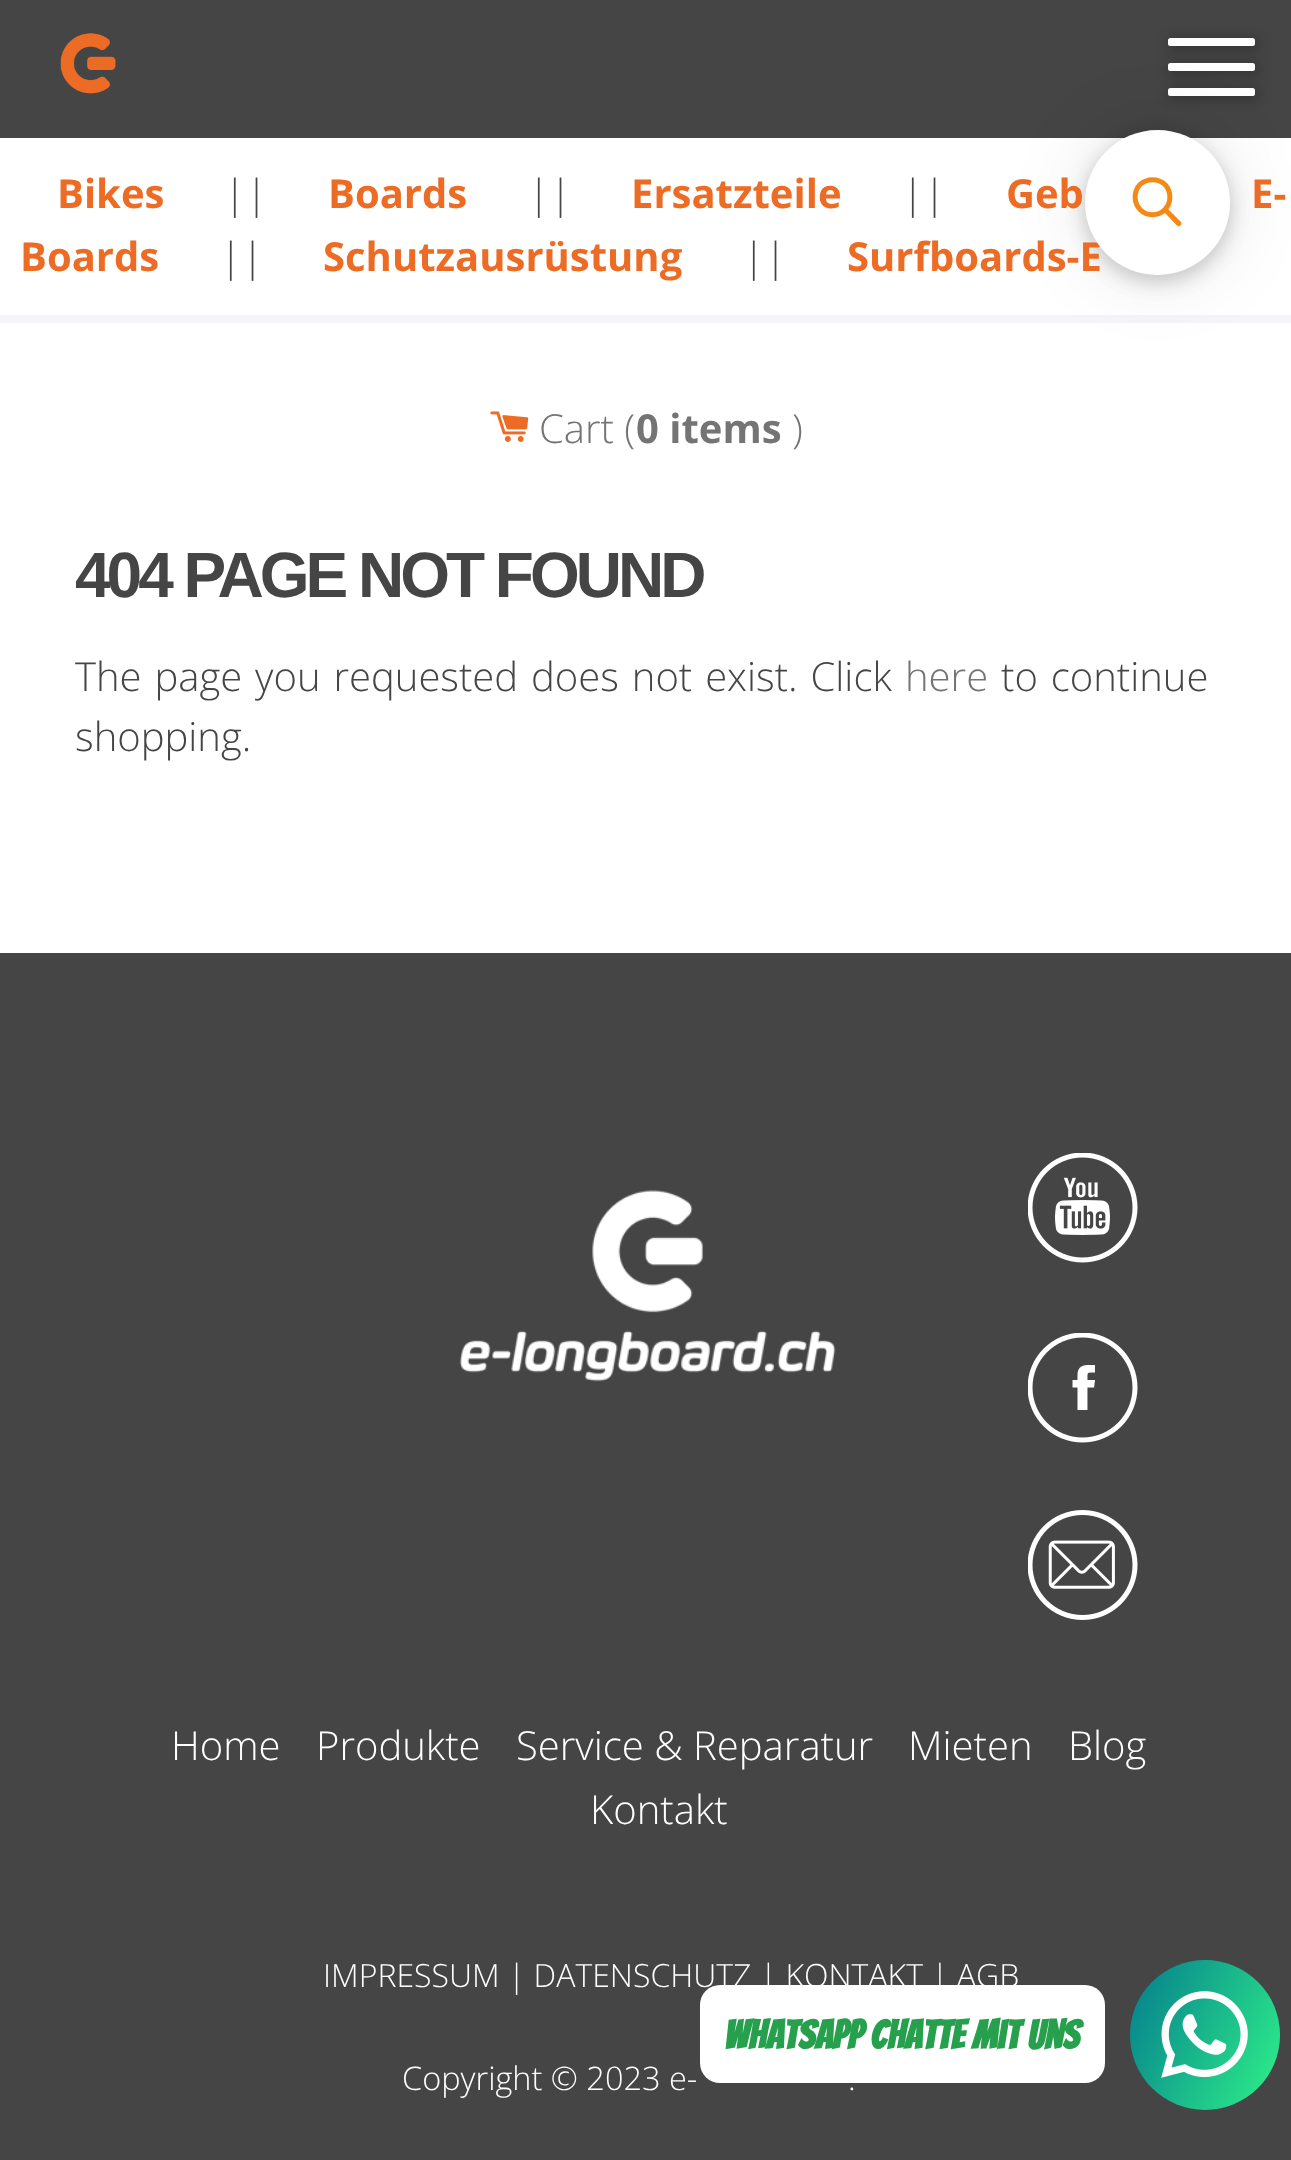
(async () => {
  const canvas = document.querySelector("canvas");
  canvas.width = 1291;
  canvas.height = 2160;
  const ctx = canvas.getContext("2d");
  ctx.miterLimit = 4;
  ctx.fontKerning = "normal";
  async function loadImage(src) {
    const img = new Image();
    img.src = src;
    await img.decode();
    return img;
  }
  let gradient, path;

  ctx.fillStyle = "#ffffff";
  ctx.fillRect(0, 0, 1291, 2160);
  ctx.fillStyle = "#454545";
  ctx.fillRect(0, 0, 1291, 138);
  ctx.drawImage(await loadImage("img/1.png"), 60, 33, 56, 61);
  ctx.fillStyle = "rgba(0, 0, 0, 0.25)";
  ctx.filter = "blur(6px)";
  ctx.beginPath();
  ctx.roundRect(1168, 63, 92, 12, 5);
  ctx.fill();
  ctx.filter = "none";
  ctx.fillStyle = "#ffffff";
  ctx.beginPath();
  ctx.roundRect(1168, 63, 87, 8, 2.5);
  ctx.fill();
  ctx.fillStyle = "rgba(0, 0, 0, 0.25)";
  ctx.filter = "blur(6px)";
  ctx.beginPath();
  ctx.roundRect(1168, 38, 92, 12, 5);
  ctx.fill();
  ctx.filter = "none";
  ctx.fillStyle = "#ffffff";
  ctx.beginPath();
  ctx.roundRect(1168, 38, 87, 8, 2.5);
  ctx.fill();
  ctx.fillStyle = "rgba(0, 0, 0, 0.25)";
  ctx.filter = "blur(6px)";
  ctx.beginPath();
  ctx.roundRect(1168, 88, 92, 12, 5);
  ctx.fill();
  ctx.filter = "none";
  ctx.fillStyle = "#ffffff";
  ctx.beginPath();
  ctx.roundRect(1168, 88, 87, 8, 2.5);
  ctx.fill();
  ctx.fillStyle = "#f3f5f8";
  ctx.fillRect(0, 315, 1291, 8);
  ctx.fillStyle = "rgba(0, 0, 0, 0.05)";
  ctx.filter = "blur(10px)";
  ctx.beginPath();
  ctx.roundRect(1085, 140, 145, 145, 72.5);
  ctx.fill();
  ctx.filter = "none";
  ctx.fillStyle = "rgba(0, 0, 0, 0.15)";
  ctx.filter = "blur(10px)";
  ctx.beginPath();
  ctx.roundRect(1085, 135, 145, 145, 72.5);
  ctx.fill();
  ctx.filter = "none";
  ctx.fillStyle = "rgba(0, 0, 0, 0.1)";
  ctx.filter = "blur(37.5px)";
  ctx.beginPath();
  ctx.roundRect(1085, 130, 145, 145, 72.5);
  ctx.fill();
  ctx.filter = "none";
  ctx.drawImage(await loadImage("img/2.png"), 490, 411, 39, 31);
  ctx.fillStyle = "#454545";
  ctx.fillRect(0, 953, 1291, 1207);
  ctx.drawImage(await loadImage("img/3.png"), 459, 1190, 377, 192);
  ctx.drawImage(await loadImage("img/4.png"), 1028, 1153, 110, 110);
  ctx.drawImage(await loadImage("img/5.png"), 1028, 1333, 110, 110);
  ctx.drawImage(await loadImage("img/6.png"), 1028, 1510, 110, 110);
  gradient = ctx.createLinearGradient(1115, 1993, 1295, 2077);
  gradient.addColorStop(0, "#047c8d");
  gradient.addColorStop(1, "#2ff289");
  ctx.fillStyle = gradient;
  ctx.beginPath();
  ctx.arc(1205, 2035, 75, 0, Math.PI * 2);
  ctx.fill();
  ctx.fillStyle = "#ffffff";
  ctx.beginPath();
  ctx.roundRect(700, 1985, 405, 98, 20);
  ctx.fill();
  ctx.drawImage(await loadImage("img/7.png"), 1161, 1991, 87, 87);
  ctx.font = "bold 40px Open Sans";
  ctx.fillStyle = "#ed6c25";
  ctx.fillText("Bikes", 57, 208);
  ctx.font = "300 40px Open Sans";
  ctx.fillStyle = "#454545";
  ctx.fillText("||", 224, 208);
  ctx.font = "bold 40px Open Sans";
  ctx.fillStyle = "#ed6c25";
  ctx.fillText("Boards", 328, 208);
  ctx.font = "300 40px Open Sans";
  ctx.fillStyle = "#454545";
  ctx.fillText("||", 528, 208);
  ctx.font = "bold 40px Open Sans";
  ctx.fillStyle = "#ed6c25";
  ctx.fillText("Ersatzteile", 631, 208);
  ctx.font = "300 40px Open Sans";
  ctx.fillStyle = "#454545";
  ctx.fillText("||", 902, 208);
  ctx.font = "bold 40px Open Sans";
  ctx.fillStyle = "#ed6c25";
  for (const [text, x, y] of [
    ["Geb", 1006, 208],
    ["E-", 1251, 208],
    ["Boards", 20, 271],
  ]) {
    ctx.fillText(text, x, y);
  }
  ctx.font = "300 40px Open Sans";
  ctx.fillStyle = "#454545";
  ctx.fillText("||", 220, 271);
  ctx.font = "bold 40px Open Sans";
  ctx.fillStyle = "#ed6c25";
  ctx.fillText("Schutzausrüstung", 323, 271);
  ctx.font = "300 40px Open Sans";
  ctx.fillStyle = "#454545";
  ctx.fillText("||", 743, 271);
  ctx.font = "bold 40px Open Sans";
  ctx.fillStyle = "#ed6c25";
  ctx.fillText("Surfboards-E", 847, 271);
  ctx.fillStyle = "#ffffff";
  ctx.beginPath();
  ctx.arc(1157.5, 202.5, 72.5, 0, Math.PI * 2);
  ctx.fill();
  path = new Path2D("M1140 184.5C1147 178 1158 178 1165 184.5C1171.5 191.5 1171.5 202.5 1165 209.5C1158 216.5 1147 216.5 1140 209.5C1133.5 202.5 1133.5 191.5 1140 184.5Z");
  ctx.strokeStyle = "#f58916";
  ctx.lineWidth = 5;
  ctx.stroke(path);
  ctx.fillStyle = "#f58916";
  path = new Path2D("M1163 211L1166.5 207.5L1181 222C1182.5 224.5 1179.5 227.5 1177 225.5Z");
  ctx.fill(path);
  ctx.font = "300 40px Open Sans";
  ctx.fillStyle = "#747474";
  ctx.fillText("Cart (", 539, 443);
  ctx.font = "bold 40px Open Sans";
  ctx.fillText("0 items", 636, 443);
  ctx.font = "300 40px Open Sans";
  ctx.fillText(")", 792, 443);
  ctx.letterSpacing = "-4px";
  ctx.font = "bold 64px Liberation Sans";
  ctx.fillStyle = "#454545";
  ctx.fillText("404 PAGE NOT FOUND", 75, 597);
  ctx.letterSpacing = "0px";
  ctx.wordSpacing = "2.5px";
  ctx.font = "300 40px Open Sans";
  ctx.fillText("The page you requested does not exist. Click", 75, 691);
  ctx.wordSpacing = "0px";
  ctx.fillStyle = "#747474";
  ctx.fillText("here", 905, 691);
  ctx.wordSpacing = "2.5px";
  ctx.fillStyle = "#454545";
  ctx.fillText("to continue", 1001, 691);
  ctx.wordSpacing = "0px";
  ctx.fillText("shopping.", 75, 751);
  ctx.fillStyle = "#ffffff";
  for (const [text, x, y] of [
    ["Home", 171, 1760],
    ["Produkte", 316, 1760],
    ["Service & Reparatur", 516, 1760],
    ["Mieten", 908, 1760],
    ["Blog", 1068, 1760],
    ["Kontakt", 590, 1824],
  ]) {
    ctx.fillText(text, x, y);
  }
  ctx.font = "300 32px Open Sans";
  ctx.fillText("IMPRESSUM | DATENSCHUTZ | KONTAKT | AGB", 323, 1987);
  ctx.font = "300 32.5px Open Sans";
  ctx.fillText("Copyright © 2023 e-", 402, 2090);
  ctx.fillText(".", 848, 2090);
  ctx.font = "bold 40px Bangers";
  ctx.fillStyle = "#26a04d";
  ctx.fillText("WhatsApp chatte mit uns", 724, 2049);
})();
